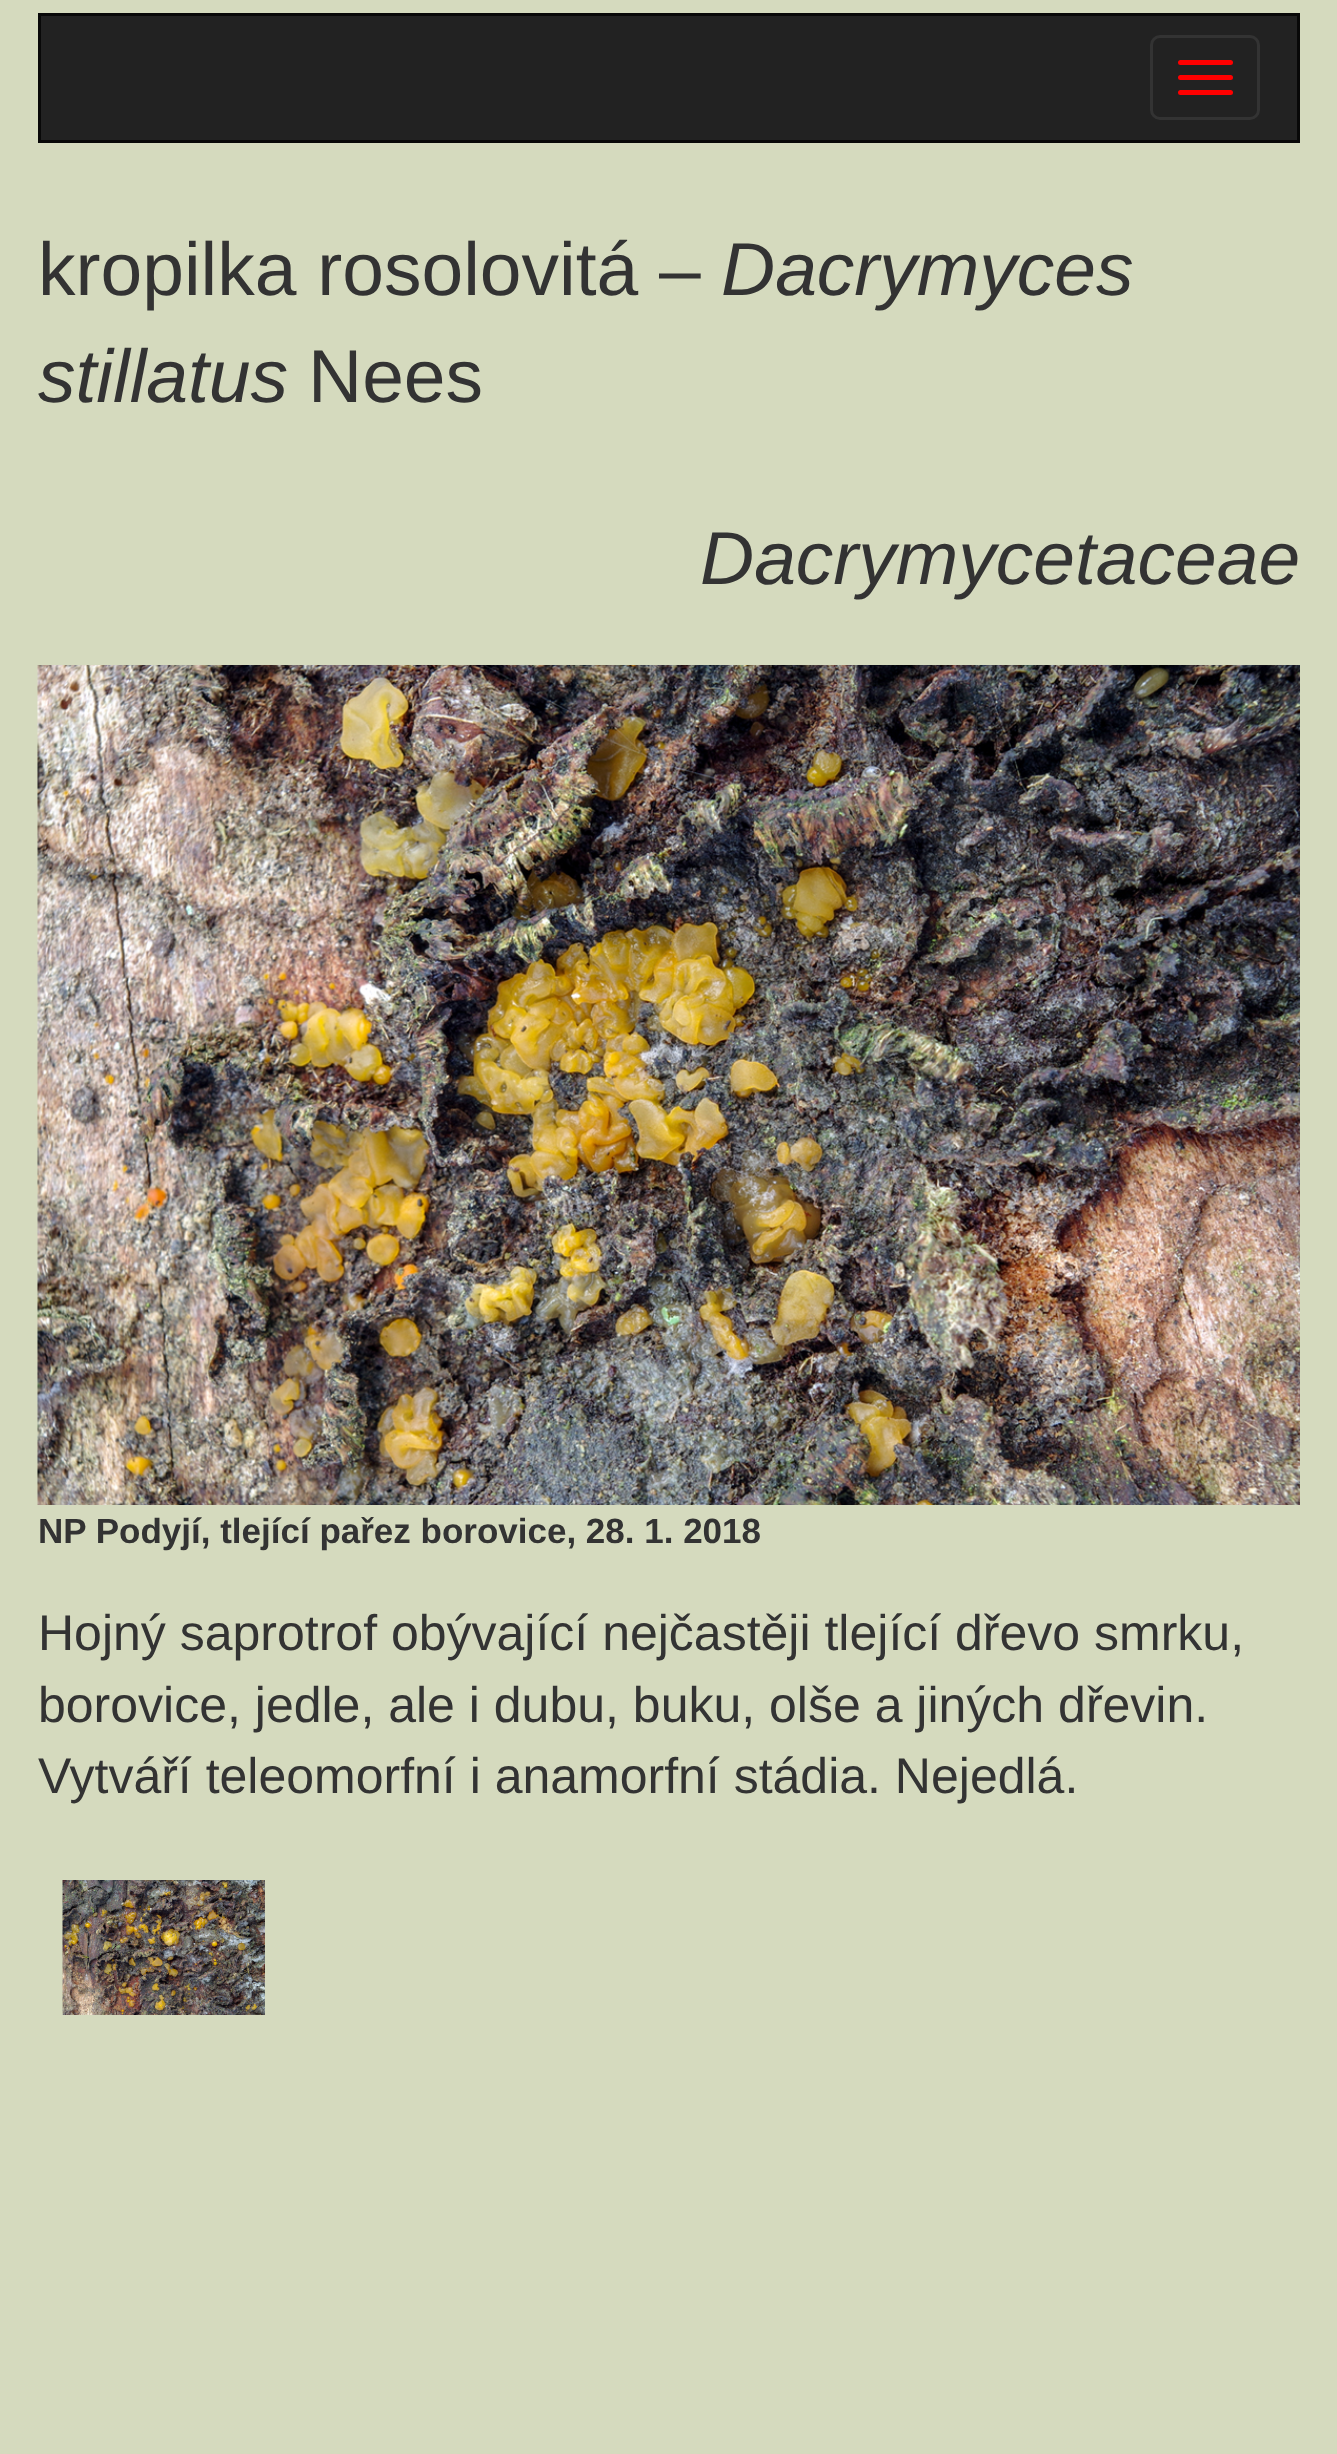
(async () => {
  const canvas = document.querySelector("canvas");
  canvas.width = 1337;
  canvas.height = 2454;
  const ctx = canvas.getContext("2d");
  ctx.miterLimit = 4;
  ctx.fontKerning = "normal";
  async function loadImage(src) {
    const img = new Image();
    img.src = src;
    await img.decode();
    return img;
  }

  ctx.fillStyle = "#d5dabe";
  ctx.fillRect(0, 0, 1337, 2454);
  ctx.fillStyle = "#222222";
  ctx.beginPath();
  ctx.rect(39.5, 14.5, 1259, 127);
  ctx.fill();
  ctx.strokeStyle = "#080808";
  ctx.lineWidth = 3;
  ctx.stroke();
  ctx.beginPath();
  ctx.roundRect(1151.5, 36.5, 107, 82, 8.5);
  ctx.strokeStyle = "#333333";
  ctx.stroke();
  ctx.fillStyle = "#ff0000";
  ctx.beginPath();
  ctx.roundRect(1178, 60, 55, 5, 2.5);
  ctx.fill();
  ctx.beginPath();
  ctx.roundRect(1178, 75, 55, 5, 2.5);
  ctx.fill();
  ctx.beginPath();
  ctx.roundRect(1178, 90, 55, 5, 2.5);
  ctx.fill();
  ctx.drawImage(await loadImage("img/1.png"), 37, 665, 1263, 840);
  ctx.drawImage(await loadImage("img/2.png"), 62, 1880, 203, 135);
  ctx.font = "75px Liberation Sans";
  ctx.fillStyle = "#333333";
  ctx.fillText("kropilka rosolovitá –", 38, 295);
  ctx.font = "italic 75px Liberation Sans";
  ctx.fillText("Dacrymyces", 721, 295);
  ctx.fillText("stillatus", 38, 402);
  ctx.font = "75px Liberation Sans";
  ctx.fillText("Nees", 308, 402);
  ctx.font = "italic 75px Liberation Sans";
  ctx.fillText("Dacrymycetaceae", 700, 584);
  ctx.font = "bold 35px Liberation Sans";
  ctx.fillText("NP Podyjí, tlející pařez borovice, 28. 1. 2018", 38, 1543);
  ctx.font = "50px Liberation Sans";
  for (const [text, x, y] of [
    ["Hojný saprotrof obývající nejčastěji tlející dřevo smrku,", 38, 1650],
    ["borovice, jedle, ale i dubu, buku, olše a jiných dřevin.", 38, 1722],
    ["Vytváří teleomorfní i anamorfní stádia. Nejedlá.", 38, 1793],
  ]) {
    ctx.fillText(text, x, y);
  }
})();
